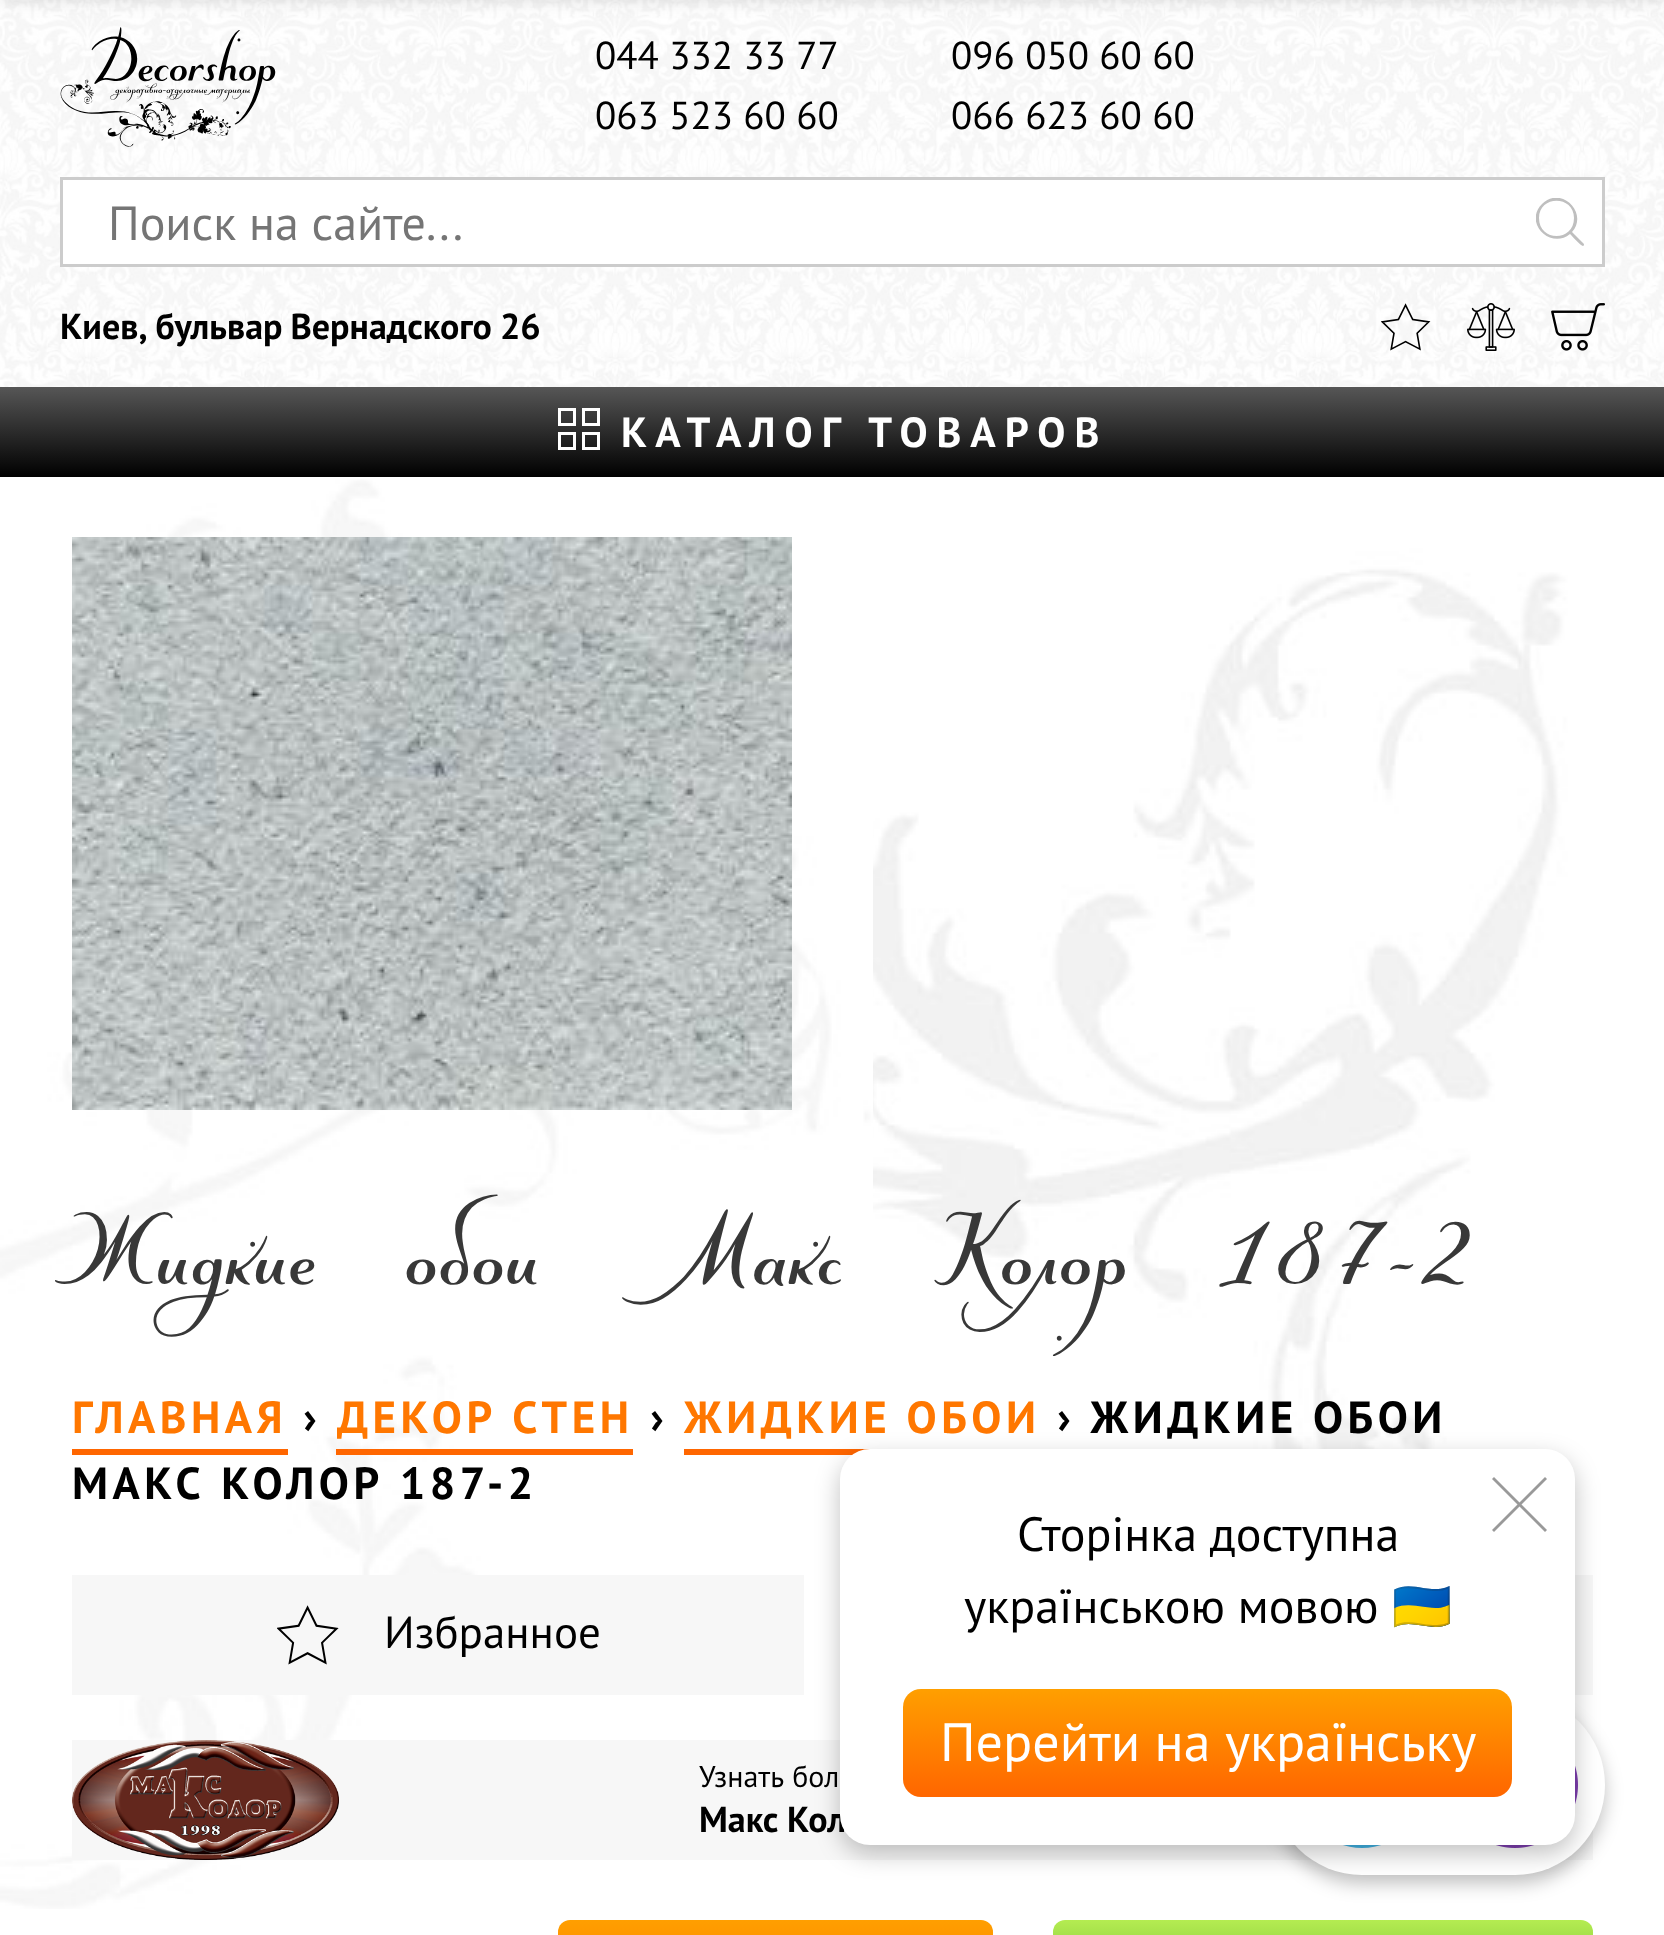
(async () => {
  const canvas = document.querySelector("canvas");
  canvas.width = 1664;
  canvas.height = 1935;
  const ctx = canvas.getContext("2d");
  ctx.miterLimit = 4;
  ctx.fontKerning = "normal";
  async function loadImage(src) {
    const img = new Image();
    img.src = src;
    await img.decode();
    return img;
  }
  let gradient, path;

  ctx.fillStyle = "#ffffff";
  ctx.fillRect(0, 0, 1664, 1935);
  ctx.drawImage(await loadImage("img/1.png"), 0, 0, 1664, 387);
  ctx.drawImage(await loadImage("img/2.png"), 60, 27, 216, 120);
  ctx.fillStyle = "rgba(0, 0, 0, 0.13)";
  ctx.filter = "blur(9px)";
  ctx.beginPath();
  ctx.rect(0, -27, 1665, 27);
  ctx.fill();
  ctx.filter = "none";
  ctx.fillStyle = "#ffffff";
  ctx.beginPath();
  ctx.rect(61.5, 178.5, 1542, 87);
  ctx.fill();
  ctx.strokeStyle = "#cccccc";
  ctx.lineWidth = 3;
  ctx.stroke();
  ctx.save();
  ctx.beginPath();
  ctx.rect(1536, 198, 48, 48);
  ctx.clip();
  ctx.fillStyle = "#bfbfbf";
  path = new Path2D("M1584 244L1572 232C1589 213 1561 185 1542 204C1523 223 1551 250 1570 234C1572 236 1581 246 1583 246C1584 246 1584 244 1584 244ZM1539 218C1539 195 1574 195 1574 218C1574 242 1539 242 1539 218Z");
  ctx.fill(path, "evenodd");
  ctx.restore();
  ctx.drawImage(await loadImage("img/3.png"), 1381, 303, 50, 48);
  ctx.drawImage(await loadImage("img/4.png"), 1467, 303, 48, 48);
  ctx.drawImage(await loadImage("img/5.png"), 1551, 303, 54, 48);
  gradient = ctx.createLinearGradient(833, 387, 833, 477);
  gradient.addColorStop(0, "#565656");
  gradient.addColorStop(1, "#000000");
  ctx.fillStyle = gradient;
  ctx.fillRect(0, 387, 1664, 90);
  ctx.strokeStyle = "#ffffff";
  ctx.strokeRect(559.5, 409.5, 15, 15);
  ctx.strokeRect(583.5, 409.5, 15, 15);
  ctx.strokeRect(559.5, 433.5, 15, 15);
  ctx.strokeRect(583.5, 433.5, 15, 15);
  ctx.drawImage(await loadImage("img/6.png"), 873, 537, 703, 1182);
  ctx.drawImage(await loadImage("img/7.png"), 0, 479, 873, 1430);
  ctx.drawImage(await loadImage("img/8.png"), 72, 537, 720, 573);
  for (const [x, y, w, h, color] of [
    [72, 1449, 216, 6, "#ff6600"],
    [336, 1449, 297, 6, "#ff6600"],
    [684, 1449, 186, 6, "#ff6600"],
    [72, 1575, 732, 120, "#f7f7f7"],
  ]) {
    ctx.fillStyle = color;
    ctx.fillRect(x, y, w, h);
  }
  ctx.drawImage(await loadImage("img/9.png"), 277, 1605, 62, 60);
  ctx.fillRect(1575, 1575, 18, 120);
  ctx.fillRect(72, 1740, 1521, 120);
  ctx.drawImage(await loadImage("img/10.png"), 72, 1740, 267, 120);
  gradient = ctx.createLinearGradient(776, 1920, 776, 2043);
  gradient.addColorStop(0, "#ff9f00");
  gradient.addColorStop(1, "#ff6600");
  ctx.fillStyle = gradient;
  ctx.beginPath();
  ctx.roundRect(558, 1920, 435, 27, 12);
  ctx.fill();
  gradient = ctx.createLinearGradient(1323, 1920, 1323, 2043);
  gradient.addColorStop(0, "#b4ec51");
  gradient.addColorStop(1, "#429321");
  ctx.fillStyle = gradient;
  ctx.beginPath();
  ctx.roundRect(1053, 1920, 540, 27, 12);
  ctx.fill();
  ctx.fillStyle = "rgba(0, 0, 0, 0.24)";
  ctx.filter = "blur(9px)";
  ctx.beginPath();
  ctx.roundRect(1272, 1704, 333, 180, 90);
  ctx.fill();
  ctx.filter = "none";
  ctx.fillStyle = "#ffffff";
  ctx.beginPath();
  ctx.roundRect(1272, 1695, 333, 180, 90);
  ctx.fill();
  ctx.fillStyle = "#41b4e6";
  ctx.beginPath();
  ctx.arc(1362, 1785, 63, 0, Math.PI * 2);
  ctx.fill();
  ctx.drawImage(await loadImage("img/11.png"), 1496, 1766, 82, 82);
  ctx.fillStyle = "rgba(0, 0, 0, 0.24)";
  ctx.filter = "blur(12px)";
  ctx.beginPath();
  ctx.roundRect(840, 1458, 735, 396, 30);
  ctx.fill();
  ctx.filter = "none";
  ctx.font = "39px PT Sans";
  ctx.fillStyle = "#000000";
  for (const [text, x, y] of [
    ["044 332 33 77", 595, 69],
    ["096 050 60 60", 951, 69],
    ["063 523 60 60", 595, 129],
    ["066 623 60 60", 951, 129],
  ]) {
    ctx.fillText(text, x, y);
  }
  ctx.font = "48px PT Sans";
  ctx.fillStyle = "#757575";
  ctx.fillText("Поиск на сайте...", 108, 240);
  ctx.wordSpacing = "-1px";
  ctx.font = "bold 36px PT Sans";
  ctx.fillStyle = "#000000";
  ctx.fillText("Киев, бульвар Вернадского 26", 60, 339);
  ctx.letterSpacing = "9px";
  ctx.wordSpacing = "2px";
  ctx.font = "bold 42px PT Sans";
  ctx.fillStyle = "#ffffff";
  ctx.fillText("КАТАЛОГ ТОВАРОВ", 621, 447);
  ctx.letterSpacing = "0px";
  ctx.wordSpacing = "68.5px";
  ctx.font = "96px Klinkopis";
  ctx.fillStyle = "#383838";
  ctx.fillText("Жидкие обои Макс Колор 187-2", 53, 1284);
  ctx.letterSpacing = "4.5px";
  ctx.wordSpacing = "0px";
  ctx.font = "bold 45px PT Sans";
  ctx.fillStyle = "#ff7700";
  ctx.fillText("ГЛАВНАЯ", 72, 1433);
  ctx.fillStyle = "#000000";
  ctx.fillText("›", 303, 1433);
  ctx.wordSpacing = "2px";
  ctx.fillStyle = "#ff7700";
  ctx.fillText("ДЕКОР СТЕН", 337, 1433);
  ctx.wordSpacing = "0px";
  ctx.fillStyle = "#000000";
  ctx.fillText("›", 650, 1433);
  ctx.fillStyle = "#ff7700";
  ctx.fillText("ЖИДКИЕ ОБОИ", 684, 1433);
  ctx.fillStyle = "#000000";
  ctx.fillText("› ЖИДКИЕ ОБОИ", 1057, 1433);
  ctx.wordSpacing = "2px";
  ctx.fillText("МАКС КОЛОР 187-2", 72, 1499);
  ctx.letterSpacing = "0px";
  ctx.wordSpacing = "0px";
  ctx.font = "45px PT Sans";
  ctx.fillText("Избранное", 384, 1648);
  ctx.font = "30px PT Sans";
  ctx.fillText("Узнать бол", 699, 1787);
  ctx.font = "bold 36px PT Sans";
  ctx.fillText("Макс Кол", 699, 1832);
  ctx.fillStyle = "#ffffff";
  ctx.beginPath();
  ctx.roundRect(840, 1449, 735, 396, 30);
  ctx.fill();
  ctx.fillStyle = "#999999";
  path = new Path2D("M1545 1477L1547 1479L1494 1532L1492 1530Z");
  ctx.fill(path);
  path = new Path2D("M1494 1477L1547 1530L1545 1532L1492 1479Z");
  ctx.fill(path);
  ctx.font = "48px PT Sans";
  ctx.fillStyle = "#000000";
  ctx.fillText("Сторінка доступна", 1017, 1551);
  ctx.fillText("українською мовою", 964, 1623);
  ctx.font = "48px Noto Color Emoji";
  ctx.fillText("🇺🇦", 1392, 1623);
  gradient = ctx.createLinearGradient(1208, 1689, 1208, 1797);
  gradient.addColorStop(0, "#ff9f00");
  gradient.addColorStop(1, "#ff6600");
  ctx.fillStyle = gradient;
  ctx.beginPath();
  ctx.roundRect(903, 1689, 609, 108, 18);
  ctx.fill();
  ctx.font = "54px PT Sans";
  ctx.fillStyle = "#ffffff";
  ctx.fillText("Перейти на українську", 940, 1761);
})();
